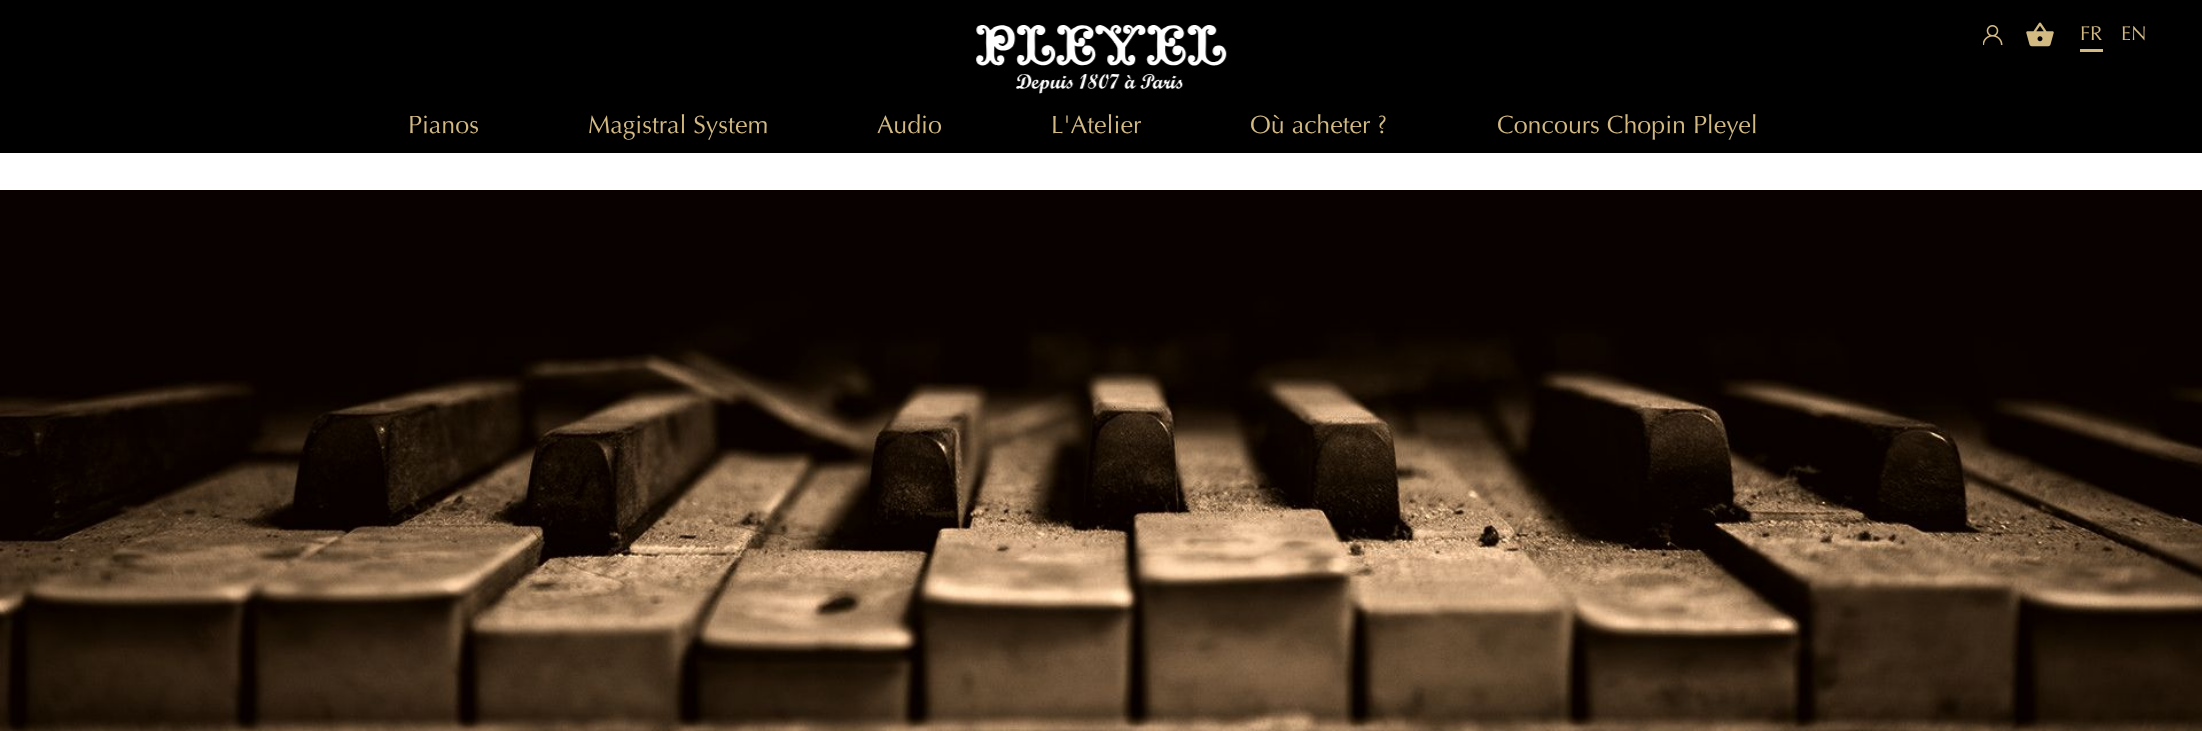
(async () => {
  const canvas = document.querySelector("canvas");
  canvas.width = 2202;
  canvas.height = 731;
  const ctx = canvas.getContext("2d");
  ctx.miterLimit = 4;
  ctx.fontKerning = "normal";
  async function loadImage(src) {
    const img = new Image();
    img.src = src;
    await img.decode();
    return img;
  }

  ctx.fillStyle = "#ffffff";
  ctx.fillRect(0, 0, 2202, 731);
  ctx.fillStyle = "#000000";
  ctx.fillRect(0, 0, 2202, 153);
  ctx.drawImage(await loadImage("img/1.png"), 976, 25, 251, 69);
  ctx.drawImage(await loadImage("img/2.png"), 1983, 25, 20, 20);
  ctx.drawImage(await loadImage("img/3.png"), 2026, 22, 28, 25);
  ctx.fillStyle = "#d3ba83";
  ctx.fillRect(2080, 49, 23, 3);
  ctx.drawImage(await loadImage("img/4.png"), 0, 190, 2202, 541);
  ctx.font = "20px Optima";
  ctx.fillText("FR", 2080, 40);
  ctx.fillText("EN", 2121, 40);
  ctx.font = "25px Optima";
  for (const [text, x, y] of [
    ["Pianos", 408, 133],
    ["Magistral System", 588, 133],
    ["Audio", 877, 133],
    ["L'Atelier", 1051, 133],
    ["Où acheter ?", 1250, 133],
    ["Concours Chopin Pleyel", 1497, 133],
  ]) {
    ctx.fillText(text, x, y);
  }
})();
